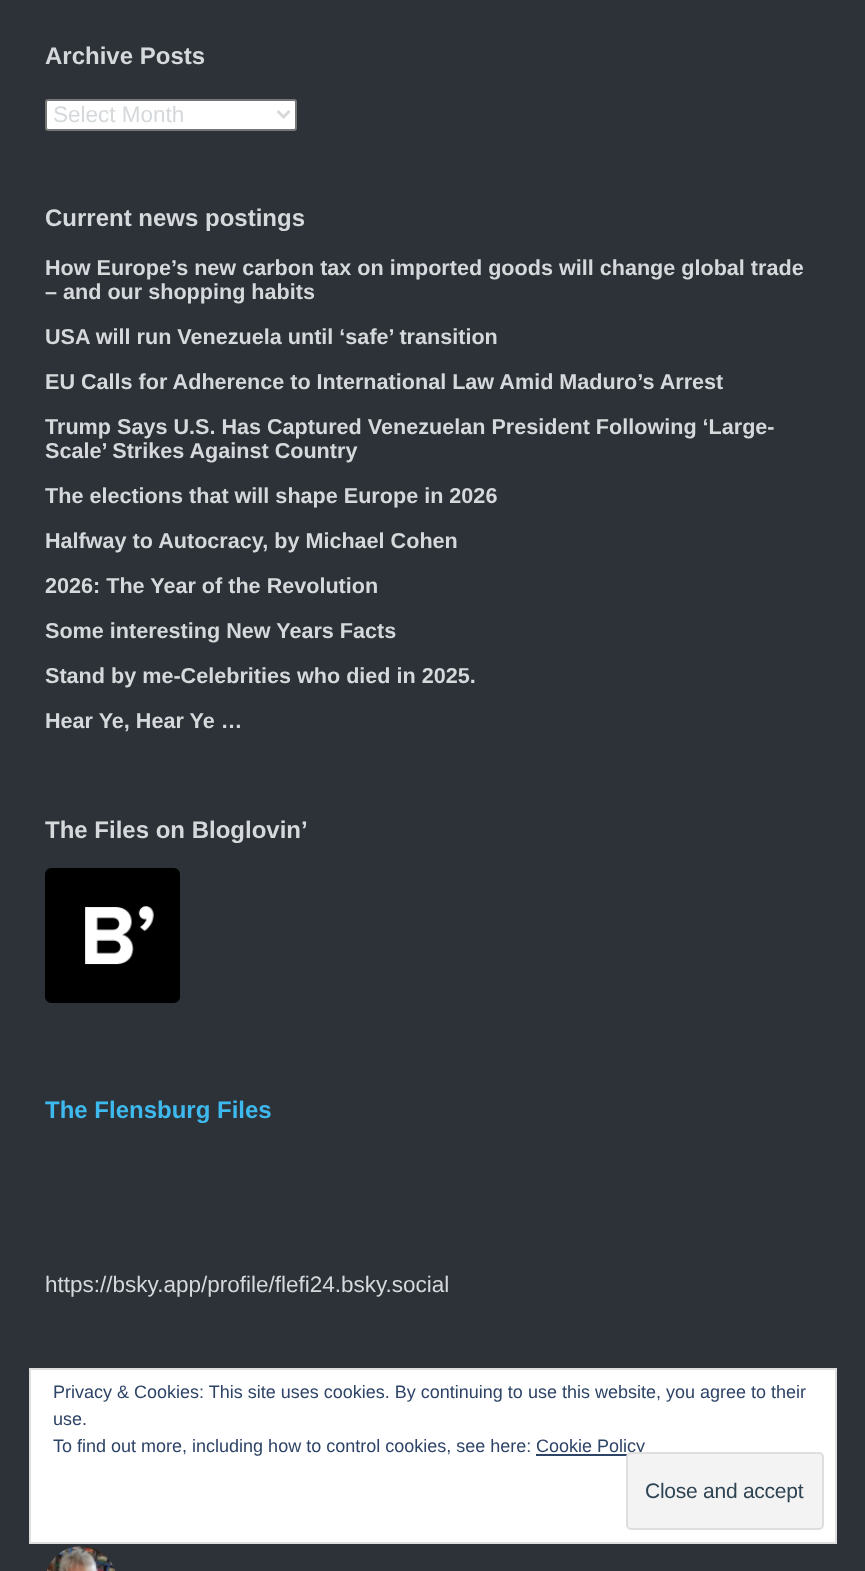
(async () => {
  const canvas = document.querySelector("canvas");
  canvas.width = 865;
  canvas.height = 1571;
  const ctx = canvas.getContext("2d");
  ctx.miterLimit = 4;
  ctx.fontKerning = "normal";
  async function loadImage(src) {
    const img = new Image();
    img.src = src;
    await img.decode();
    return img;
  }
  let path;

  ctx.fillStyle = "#2d3238";
  ctx.fillRect(0, 0, 865, 1571);
  ctx.fillStyle = "#ffffff";
  ctx.beginPath();
  ctx.roundRect(46, 100, 250, 30, 2);
  ctx.fill();
  ctx.strokeStyle = "#767676";
  ctx.lineWidth = 2;
  ctx.stroke();
  path = new Path2D("M277.5 111L283.5 117L289.5 111");
  ctx.strokeStyle = "#d8d8d8";
  ctx.lineWidth = 3;
  ctx.stroke(path);
  ctx.drawImage(await loadImage("img/1.png"), 45, 868, 135, 135);
  ctx.drawImage(await loadImage("img/2.png"), 47, 1546, 68, 25);
  ctx.beginPath();
  ctx.rect(30, 1369, 806, 174);
  ctx.fill();
  ctx.strokeStyle = "#dedede";
  ctx.lineWidth = 2;
  ctx.stroke();
  ctx.fillStyle = "#2e4467";
  ctx.fillRect(536, 1454, 91, 2);
  ctx.font = "bold 24px Arimo";
  ctx.fillStyle = "#d5d9db";
  ctx.fillText("Archive Posts", 45, 64);
  ctx.font = "22.5px Arimo";
  ctx.fillText("Select Month", 53, 122);
  ctx.font = "bold 24px Arimo";
  ctx.fillText("Current news postings", 45, 226);
  ctx.font = "bold 21.6px Arimo";
  for (const [text, x, y] of [
    ["How Europe’s new carbon tax on imported goods will change global trade", 45, 275],
    ["– and our shopping habits", 45, 299],
    ["USA will run Venezuela until ‘safe’ transition", 45, 344],
    ["EU Calls for Adherence to International Law Amid Maduro’s Arrest", 45, 389],
    ["Trump Says U.S. Has Captured Venezuelan President Following ‘Large-", 45, 434],
    ["Scale’ Strikes Against Country", 45, 458],
    ["The elections that will shape Europe in 2026", 45, 503],
    ["Halfway to Autocracy, by Michael Cohen", 45, 548],
    ["2026: The Year of the Revolution", 45, 593],
    ["Some interesting New Years Facts", 45, 638],
    ["Stand by me-Celebrities who died in 2025.", 45, 683],
    ["Hear Ye, Hear Ye …", 45, 728],
  ]) {
    ctx.fillText(text, x, y);
  }
  ctx.font = "bold 24px Arimo";
  ctx.fillText("The Files on Bloglovin’", 45, 838);
  ctx.fillStyle = "#3eb9ee";
  ctx.fillText("The Flensburg Files", 45, 1118);
  ctx.font = "22.5px Arimo";
  ctx.fillStyle = "#d5d9db";
  ctx.fillText("https://bsky.app/profile/flefi24.bsky.social", 45, 1292);
  ctx.font = "18px Arimo";
  ctx.fillStyle = "#2e4467";
  for (const [text, x, y] of [
    ["Privacy & Cookies: This site uses cookies. By continuing to use this website, you agree to their", 53, 1398],
    ["use.", 53, 1425],
    ["To find out more, including how to control cookies, see here:", 53, 1452],
    ["Cookie Policy", 536, 1452],
  ]) {
    ctx.fillText(text, x, y);
  }
  ctx.fillStyle = "#f3f3f3";
  ctx.beginPath();
  ctx.roundRect(627, 1453, 196, 76, 4);
  ctx.fill();
  ctx.stroke();
  ctx.letterSpacing = "-0.25px";
  ctx.font = "21px Arimo";
  ctx.fillStyle = "#2e4453";
  ctx.fillText("Close and accept", 645, 1498);
})();
